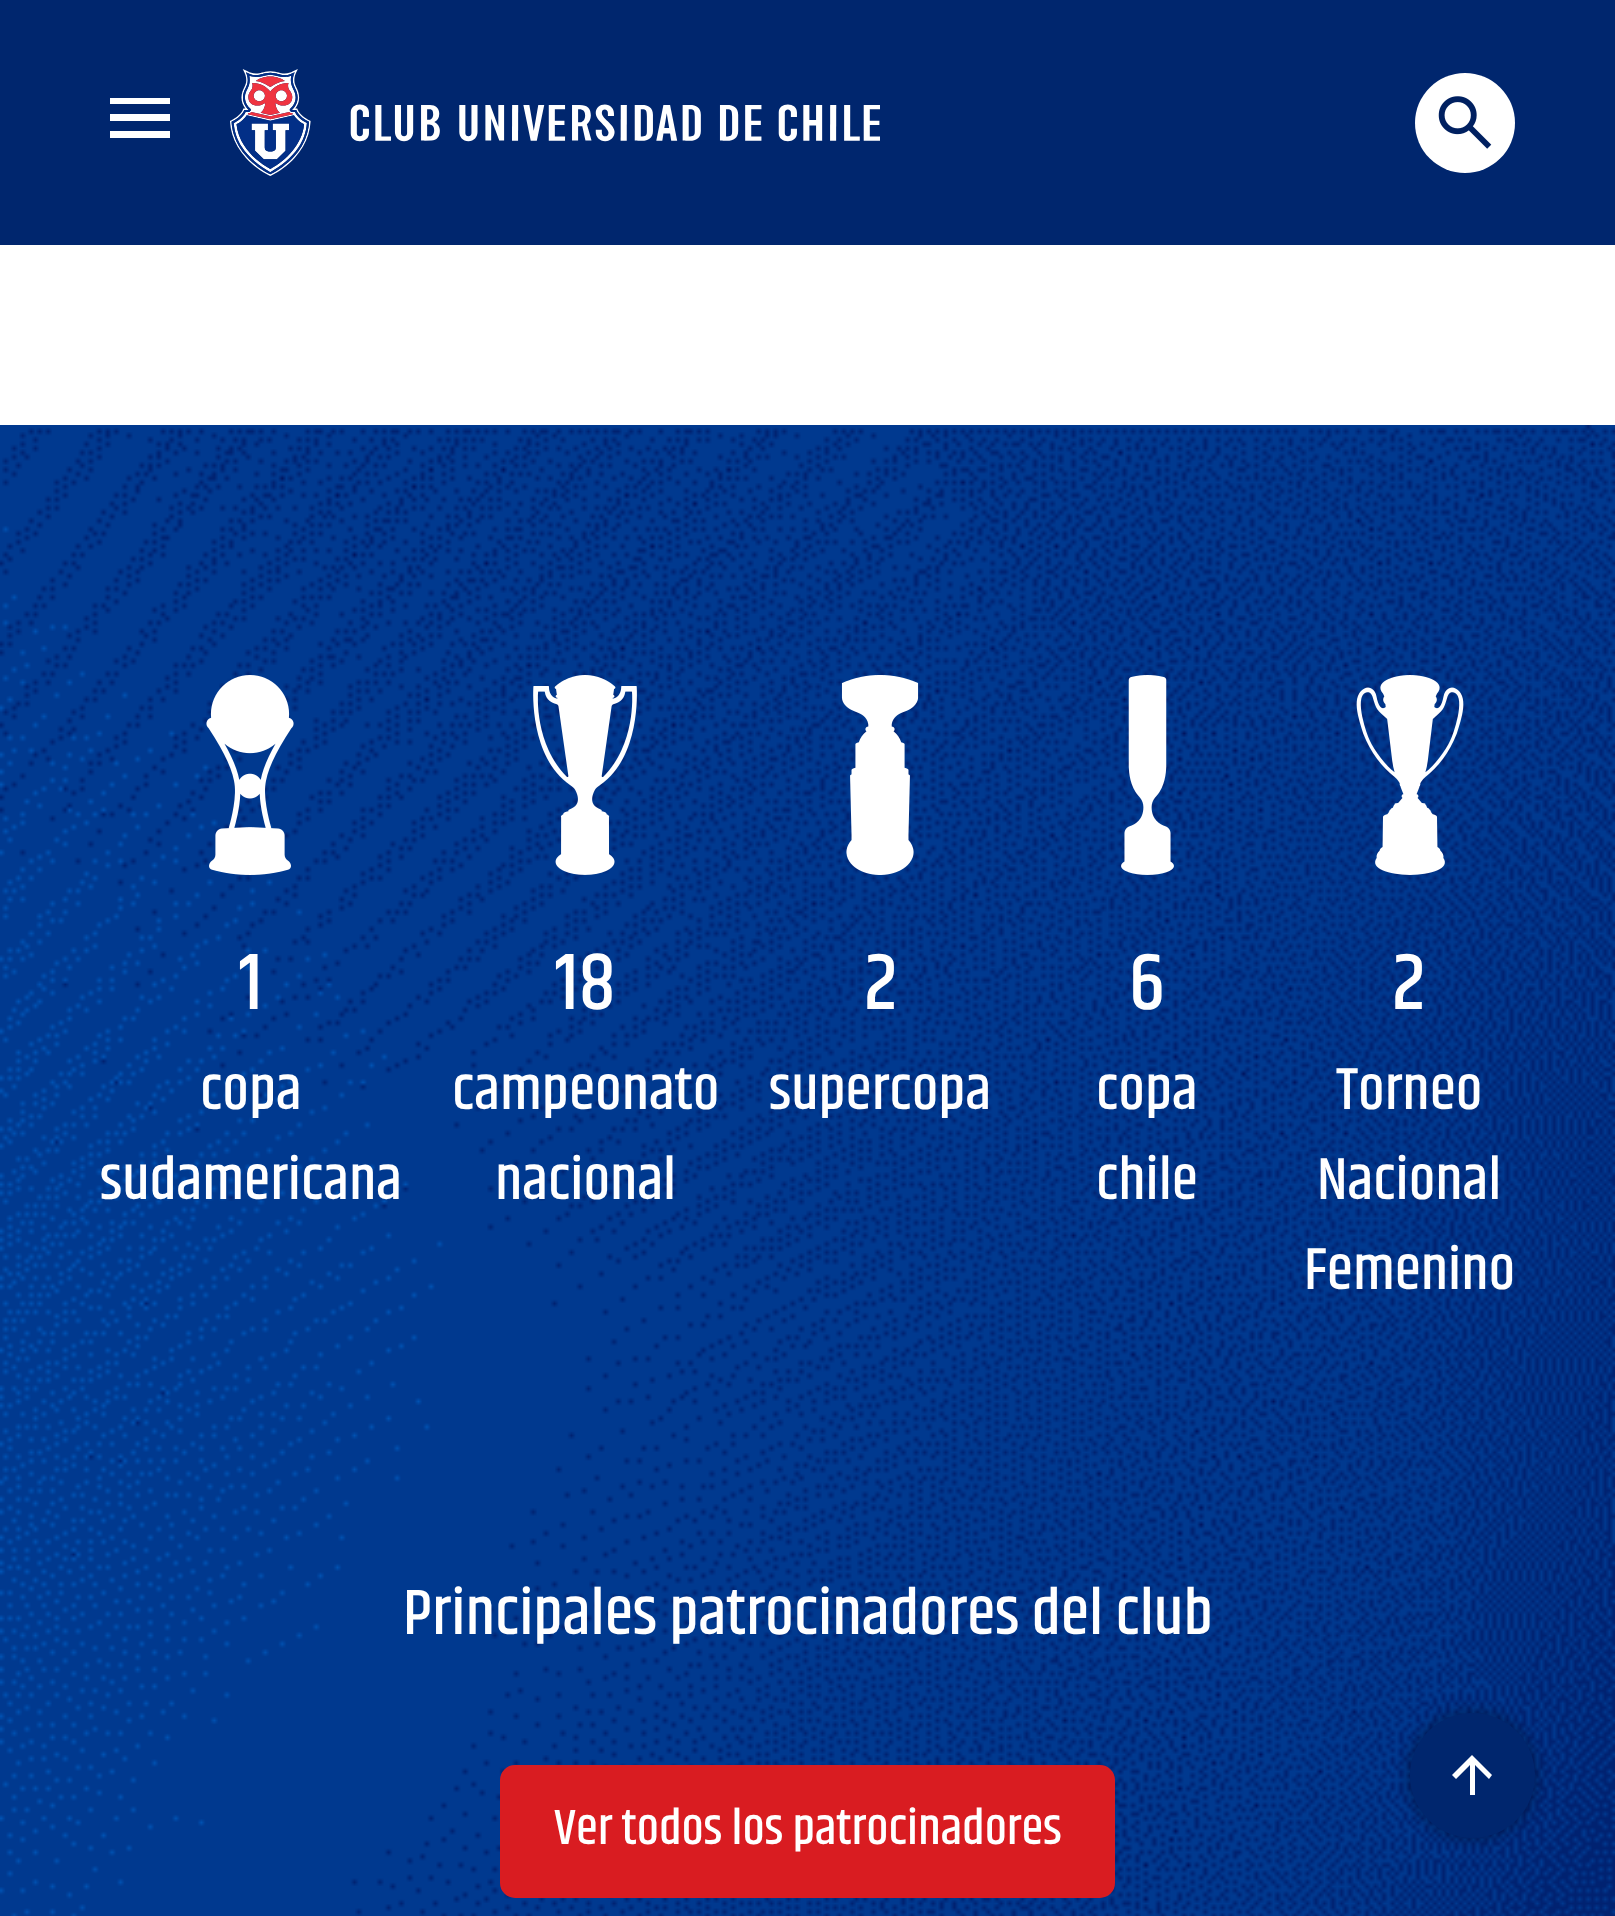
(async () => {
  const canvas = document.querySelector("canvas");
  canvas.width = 1615;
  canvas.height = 1916;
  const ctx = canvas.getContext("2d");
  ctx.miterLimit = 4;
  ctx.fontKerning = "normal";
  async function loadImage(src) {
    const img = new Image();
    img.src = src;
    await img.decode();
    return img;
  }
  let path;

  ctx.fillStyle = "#ffffff";
  ctx.fillRect(0, 0, 1615, 1916);
  ctx.fillStyle = "#00266e";
  ctx.fillRect(0, 0, 1615, 245);
  ctx.fillStyle = "#ffffff";
  path = new Path2D("M110 138V131H170V138ZM110 121V114H170V121ZM110 104V98H170V104Z");
  ctx.fill(path);
  ctx.drawImage(await loadImage("img/1.png"), 230, 69, 650, 107);
  ctx.beginPath();
  ctx.arc(1465, 123, 50, 0, Math.PI * 2);
  ctx.fill();
  ctx.drawImage(await loadImage("img/2.png"), 1438, 96, 54, 53);
  ctx.drawImage(await loadImage("img/3.png"), 0, 425, 1615, 1491);
  ctx.drawImage(await loadImage("img/4.png"), 206, 675, 88, 200);
  ctx.drawImage(await loadImage("img/5.png"), 533, 675, 104, 200);
  ctx.drawImage(await loadImage("img/6.png"), 841, 675, 78, 200);
  ctx.drawImage(await loadImage("img/7.png"), 1121, 675, 53, 200);
  ctx.drawImage(await loadImage("img/8.png"), 1356, 675, 108, 200);
  ctx.fillStyle = "#d91c21";
  ctx.beginPath();
  ctx.roundRect(501.5, 1766.5, 612, 130, 13.5);
  ctx.fill();
  ctx.strokeStyle = "#d91c21";
  ctx.lineWidth = 3;
  ctx.stroke();
  ctx.fillStyle = "rgba(0, 0, 0, 0.4)";
  ctx.filter = "blur(7.5px)";
  ctx.beginPath();
  ctx.roundRect(1410, 1713, 125, 125, 62.5);
  ctx.fill();
  ctx.filter = "none";
  ctx.fillStyle = "#00266e";
  ctx.beginPath();
  ctx.arc(1472.5, 1775.5, 62.5, 0, Math.PI * 2);
  ctx.fill();
  ctx.fillStyle = "#ffffff";
  path = new Path2D("M1470 1795V1765L1456 1779L1452 1775L1472 1755L1492 1775L1489 1779L1475 1765V1795Z");
  ctx.fill(path);
  ctx.font = "500 81px Khand";
  ctx.fillText("1", 239, 1009);
  ctx.font = "500 60px Khand";
  ctx.fillText("copa", 200, 1109);
  ctx.fillText("sudamericana", 100, 1199);
  ctx.font = "500 81px Khand";
  ctx.fillText("18", 555, 1009);
  ctx.font = "500 60px Khand";
  ctx.fillText("campeonato", 452, 1109);
  ctx.fillText("nacional", 495, 1199);
  ctx.font = "500 81px Khand";
  ctx.fillText("2", 864, 1009);
  ctx.font = "500 60px Khand";
  ctx.fillText("supercopa", 769, 1109);
  ctx.font = "500 81px Khand";
  ctx.fillText("6", 1129, 1009);
  ctx.font = "500 60px Khand";
  ctx.fillText("copa", 1096, 1109);
  ctx.fillText("chile", 1096, 1199);
  ctx.font = "500 81px Khand";
  ctx.fillText("2", 1392, 1009);
  ctx.font = "500 60px Khand";
  for (const [text, x, y] of [
    ["Torneo", 1336, 1109],
    ["Nacional", 1317, 1199],
    ["Femenino", 1304, 1289],
  ]) {
    ctx.fillText(text, x, y);
  }
  ctx.font = "500 65px Khand";
  ctx.fillText("Principales patrocinadores del club", 403, 1634);
  ctx.font = "500 50px Khand";
  ctx.fillText("Ver todos los patrocinadores", 554, 1844);
})();
